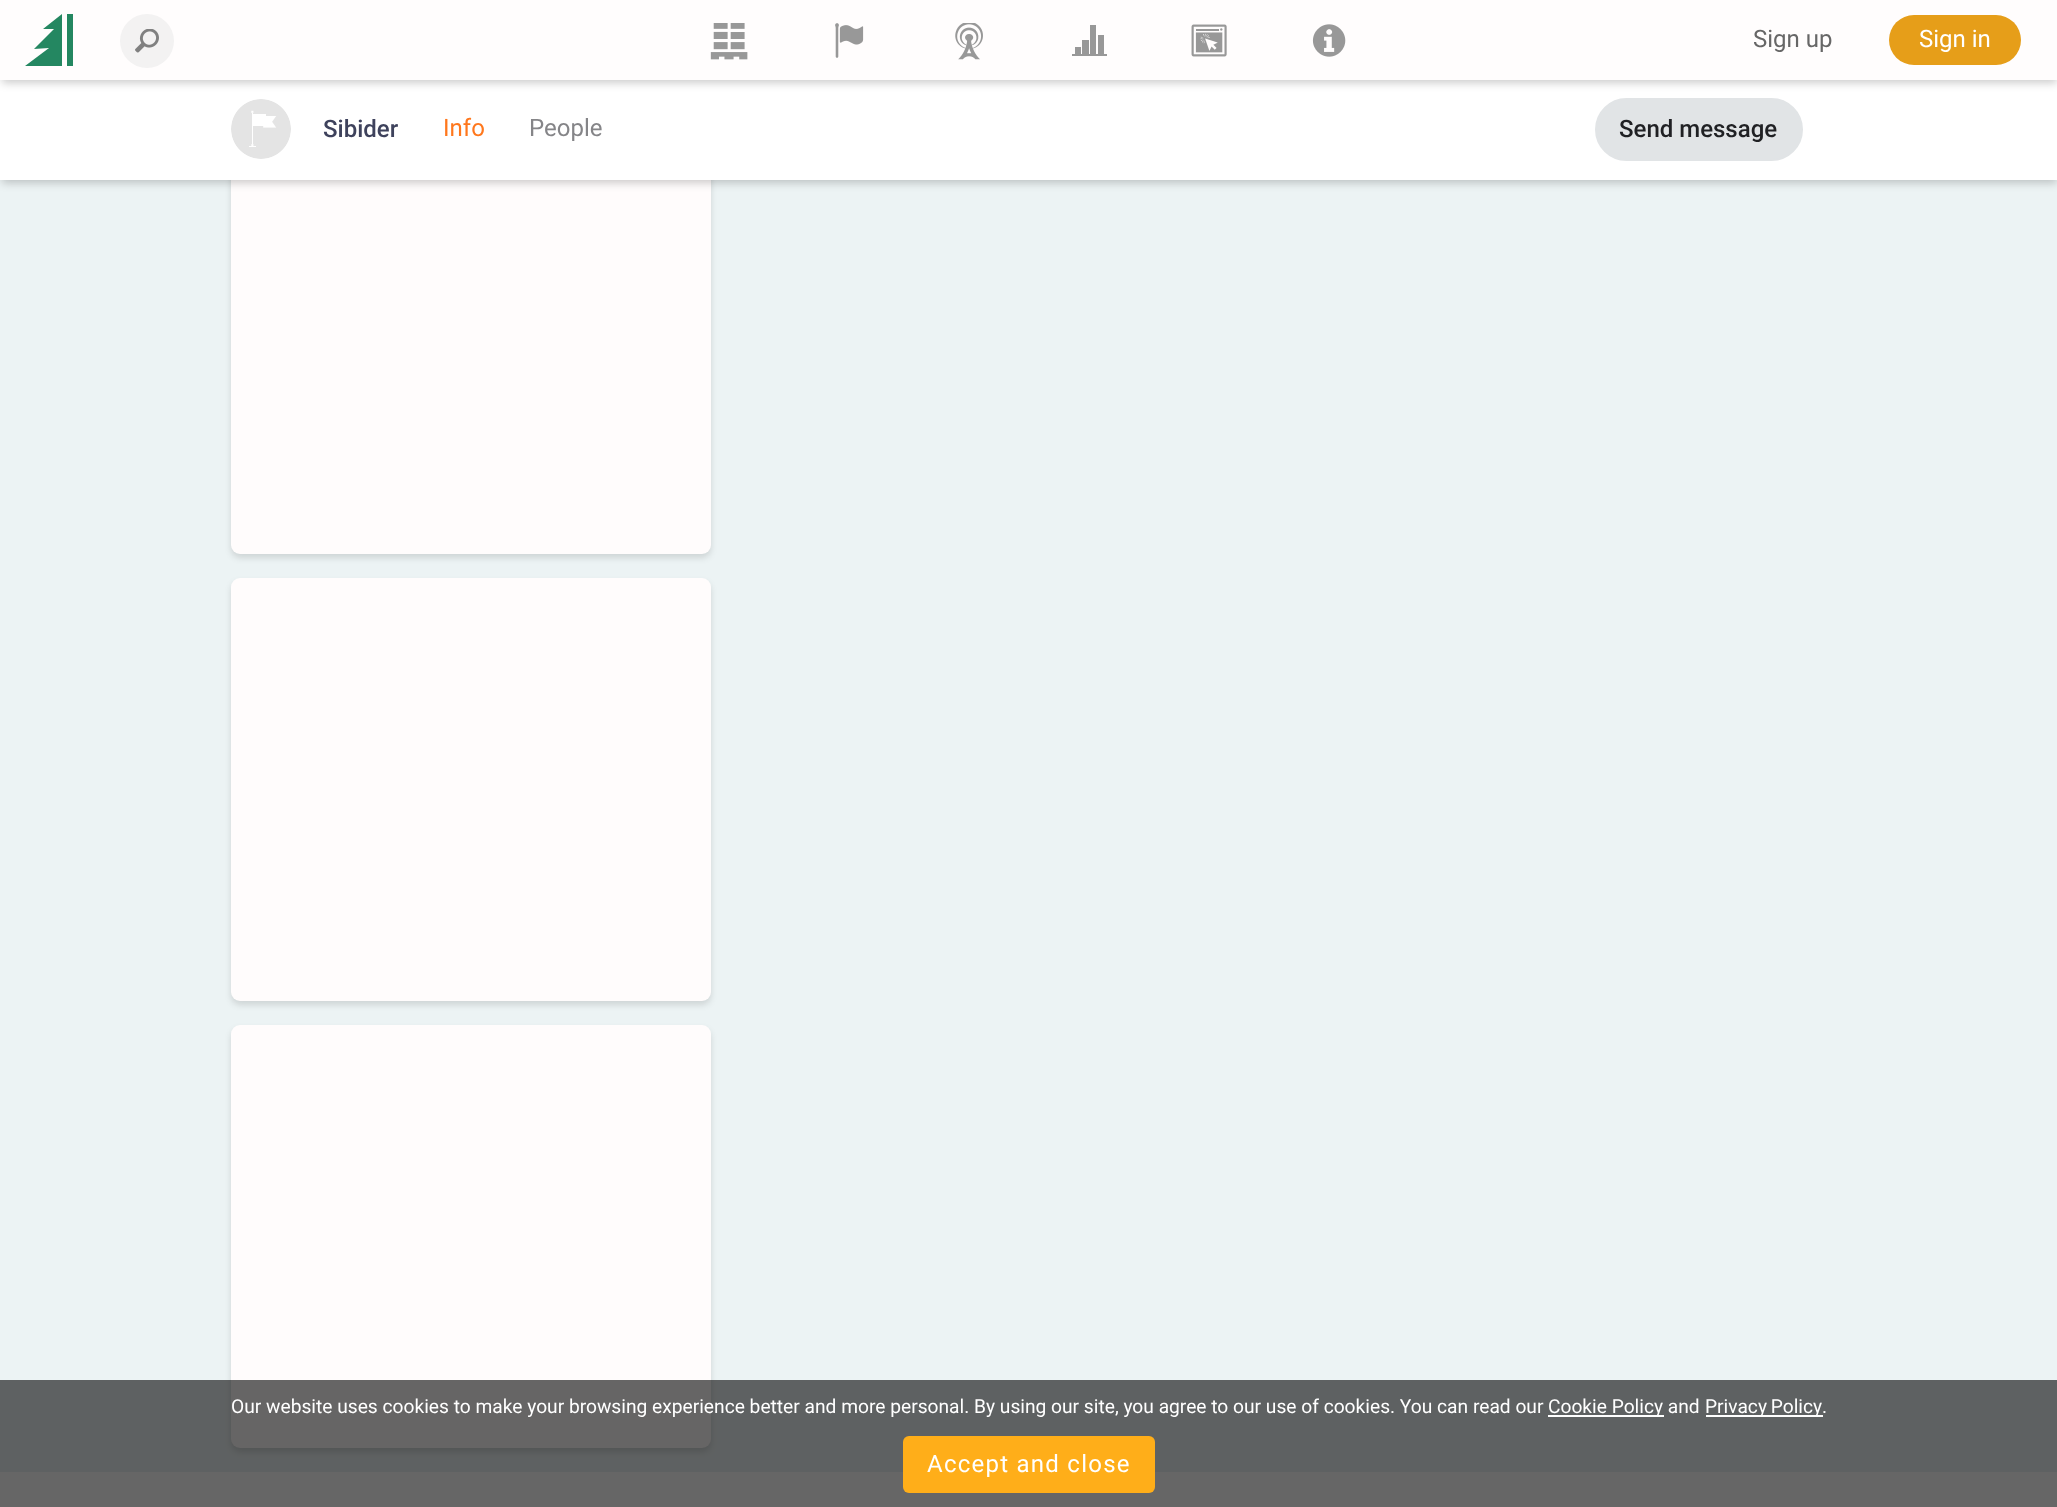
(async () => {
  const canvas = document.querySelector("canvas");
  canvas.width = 2057;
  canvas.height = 1507;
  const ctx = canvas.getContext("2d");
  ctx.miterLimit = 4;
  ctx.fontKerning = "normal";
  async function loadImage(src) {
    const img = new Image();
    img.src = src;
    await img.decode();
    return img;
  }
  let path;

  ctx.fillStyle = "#ffffff";
  ctx.fillRect(0, 0, 2057, 1507);
  ctx.fillStyle = "#ecf3f4";
  ctx.fillRect(0, 180, 2057, 1292);
  ctx.fillStyle = "rgba(0, 0, 0, 0.12)";
  ctx.filter = "blur(3px)";
  ctx.beginPath();
  ctx.roundRect(231, 135, 480, 423, 9);
  ctx.fill();
  ctx.filter = "none";
  ctx.fillStyle = "#fffcfc";
  ctx.beginPath();
  ctx.roundRect(231, 131, 480, 423, 9);
  ctx.fill();
  ctx.fillStyle = "rgba(0, 0, 0, 0.2)";
  ctx.filter = "blur(4px)";
  ctx.beginPath();
  ctx.rect(2, 84, 2055, 99);
  ctx.fill();
  ctx.filter = "none";
  ctx.fillStyle = "#ffffff";
  ctx.fillRect(0, 80, 2057, 100);
  ctx.fillStyle = "rgba(0, 0, 0, 0.2)";
  ctx.filter = "blur(4px)";
  ctx.beginPath();
  ctx.rect(2, 6, 2055, 77);
  ctx.fill();
  ctx.filter = "none";
  ctx.fillStyle = "#fffdfd";
  ctx.fillRect(0, 0, 2057, 80);
  ctx.fillStyle = "#248761";
  path = new Path2D("M62 14V66H25L49 48L34 49L54 29H43Z");
  ctx.fill(path, "evenodd");
  ctx.fillRect(67, 14, 6, 52);
  ctx.fillStyle = "#f3f2f2";
  ctx.beginPath();
  ctx.arc(147, 41, 27, 0, Math.PI * 2);
  ctx.fill();
  ctx.drawImage(await loadImage("img/1.png"), 135, 29, 24, 24);
  ctx.drawImage(await loadImage("img/2.png"), 710, 23, 38, 37);
  ctx.drawImage(await loadImage("img/3.png"), 835, 23, 29, 35);
  ctx.drawImage(await loadImage("img/4.png"), 955, 23, 28, 37);
  for (const [x, y, w, h, color] of [
    [1072, 54, 35, 2, "#989898"],
    [1075, 47, 6, 7, "#989898"],
    [1082, 40, 7, 14, "#989898"],
    [1090, 25, 6, 29, "#989898"],
    [1098, 35, 6, 19, "#989898"],
  ]) {
    ctx.fillStyle = color;
    ctx.fillRect(x, y, w, h);
  }
  ctx.drawImage(await loadImage("img/5.png"), 1191, 24, 36, 33);
  ctx.drawImage(await loadImage("img/6.png"), 1312, 24, 34, 33);
  ctx.fillStyle = "#e69e19";
  ctx.beginPath();
  ctx.roundRect(1889, 15, 132, 50, 25);
  ctx.fill();
  ctx.drawImage(await loadImage("img/7.png"), 231, 99, 60, 60);
  ctx.fillStyle = "#e1e4e6";
  ctx.beginPath();
  ctx.roundRect(1596, 99, 206, 61, 30.5);
  ctx.fill();
  ctx.strokeStyle = "#e1e4e6";
  ctx.lineWidth = 2;
  ctx.stroke();
  ctx.fillStyle = "rgba(0, 0, 0, 0.12)";
  ctx.filter = "blur(3px)";
  ctx.beginPath();
  ctx.roundRect(231, 582, 480, 423, 9);
  ctx.fill();
  ctx.filter = "none";
  ctx.fillStyle = "#fffcfc";
  ctx.beginPath();
  ctx.roundRect(231, 578, 480, 423, 9);
  ctx.fill();
  ctx.fillStyle = "rgba(0, 0, 0, 0.12)";
  ctx.filter = "blur(3px)";
  ctx.beginPath();
  ctx.roundRect(231, 1029, 480, 423, 9);
  ctx.fill();
  ctx.filter = "none";
  ctx.fillStyle = "#fffcfc";
  ctx.beginPath();
  ctx.roundRect(231, 1025, 480, 423, 9);
  ctx.fill();
  for (const [x, y, w, h, color] of [
    [0, 1380, 2057, 127, "rgba(0, 0, 0, 0.6)"],
    [1548, 1415, 116, 2, "#ffffff"],
    [1706, 1415, 117, 2, "#ffffff"],
  ]) {
    ctx.fillStyle = color;
    ctx.fillRect(x, y, w, h);
  }
  ctx.fillStyle = "#ffae19";
  ctx.beginPath();
  ctx.roundRect(903, 1436, 252, 57, 6);
  ctx.fill();
  ctx.font = "24px Roboto";
  ctx.fillStyle = "#676767";
  ctx.fillText("Sign up", 1753, 47);
  ctx.fillStyle = "#ffffff";
  ctx.fillText("Sign in", 1919, 47);
  ctx.font = "500 24px Roboto";
  ctx.fillStyle = "#3e425c";
  ctx.fillText("Sibider", 323, 137);
  ctx.font = "24px Roboto";
  ctx.fillStyle = "#ff771c";
  ctx.fillText("Info", 443, 136);
  ctx.fillStyle = "#858588";
  ctx.fillText("People", 529, 136);
  ctx.font = "500 24px Roboto";
  ctx.fillStyle = "#202124";
  ctx.fillText("Send message", 1619, 137);
  ctx.font = "19.2px Roboto";
  ctx.fillStyle = "#ffffff";
  ctx.fillText("Our website uses cookies to make your browsing experience better and more personal. By using our site, you agree to our use of cookies. You can read our", 231, 1413);
  ctx.fillText("Cookie Policy and", 1548, 1413);
  ctx.wordSpacing = "-1px";
  ctx.fillText("Privacy Policy", 1705, 1413);
  ctx.wordSpacing = "0px";
  ctx.fillText(".", 1822, 1413);
  ctx.letterSpacing = "1.25px";
  ctx.font = "24px Roboto";
  ctx.fillText("Accept and close", 927, 1472);
})();
